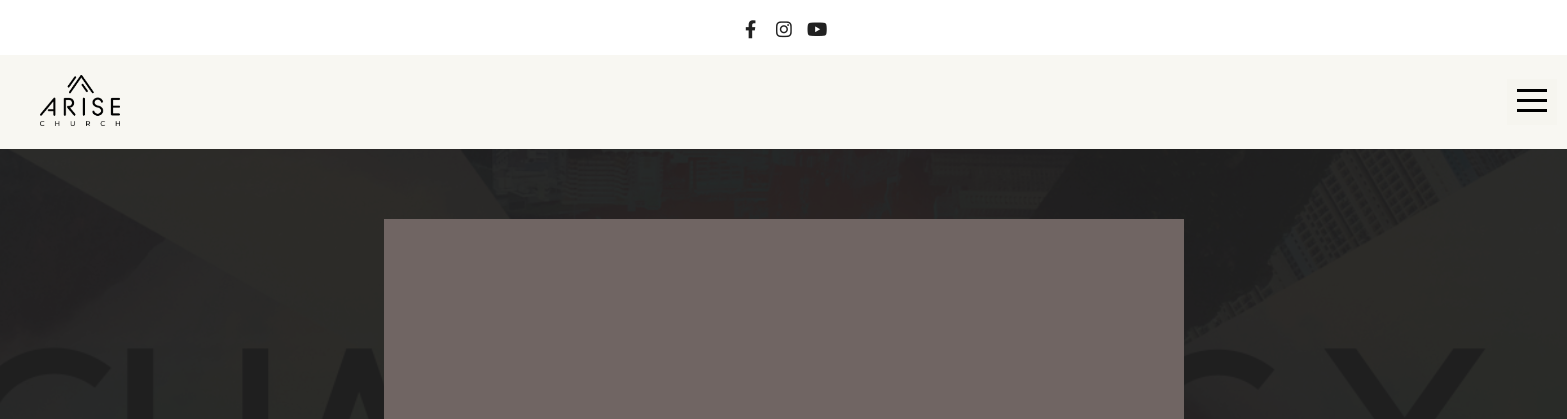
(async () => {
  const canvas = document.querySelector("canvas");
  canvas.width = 1567;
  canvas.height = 419;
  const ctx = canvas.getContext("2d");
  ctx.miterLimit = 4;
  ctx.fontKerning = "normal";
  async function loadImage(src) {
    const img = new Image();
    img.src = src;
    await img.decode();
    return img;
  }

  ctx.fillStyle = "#f8f7f2";
  ctx.fillRect(0, 0, 1567, 419);
  ctx.fillStyle = "#ffffff";
  ctx.fillRect(0, 0, 1567, 55);
  ctx.drawImage(await loadImage("img/1.png"), 745, 20, 11, 19);
  ctx.drawImage(await loadImage("img/2.png"), 776, 21, 16, 17);
  ctx.drawImage(await loadImage("img/3.png"), 807, 22, 20, 14);
  ctx.drawImage(await loadImage("img/4.png"), 40, 75, 80, 51);
  ctx.strokeStyle = "#f6f5ef";
  ctx.lineWidth = 10;
  ctx.strokeRect(1512, 84, 40, 36);
  for (const [x, y, w, h, color] of [
    [1517, 92, 30, 23, "#f6f5ef"],
    [1517, 89, 30, 3, "#000000"],
    [1517, 99, 30, 3, "#000000"],
    [1517, 109, 30, 3, "#000000"],
  ]) {
    ctx.fillStyle = color;
    ctx.fillRect(x, y, w, h);
  }
  ctx.drawImage(await loadImage("img/5.png"), 0, 149, 1567, 270);
  ctx.fillStyle = "#706563";
  ctx.fillRect(384, 219, 800, 200);
})();
